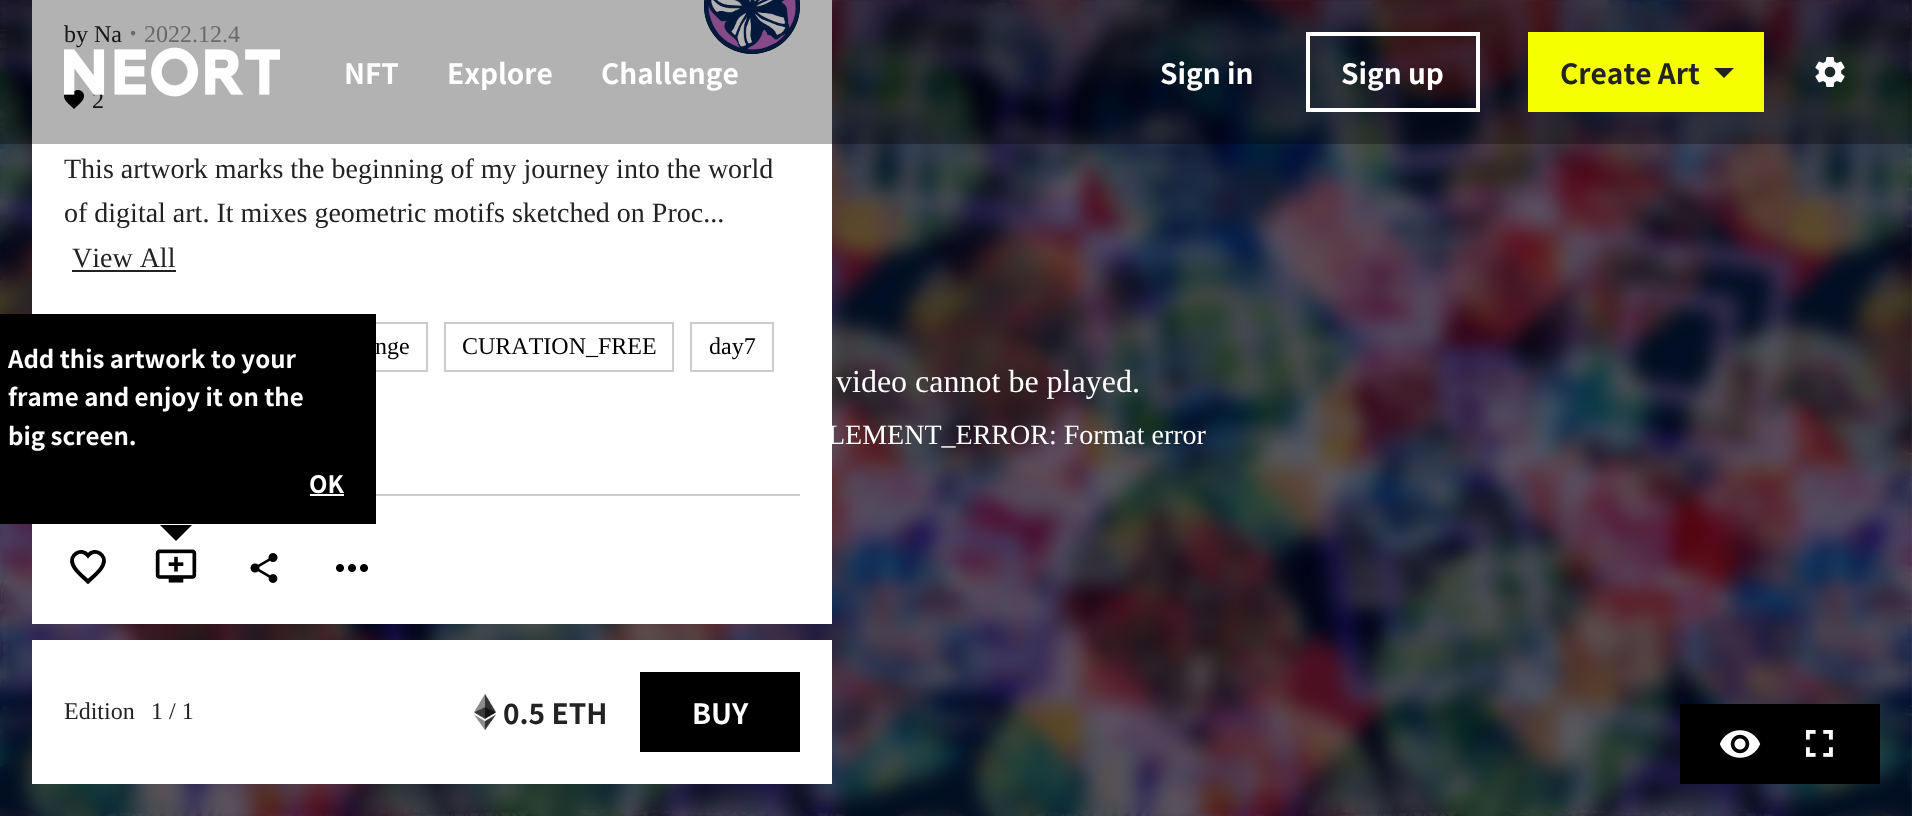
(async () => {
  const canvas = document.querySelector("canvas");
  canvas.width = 1912;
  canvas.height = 816;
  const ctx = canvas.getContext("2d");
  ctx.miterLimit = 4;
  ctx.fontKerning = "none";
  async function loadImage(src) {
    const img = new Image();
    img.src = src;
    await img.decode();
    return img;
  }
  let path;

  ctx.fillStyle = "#ffffff";
  ctx.fillRect(0, 0, 1912, 816);
  ctx.drawImage(await loadImage("img/7.png"), 0, 0, 1912, 816);
  ctx.drawImage(await loadImage("img/8.png"), 0, 0, 1912, 816);
  ctx.fillRect(32, 0, 800, 624);
  ctx.fillStyle = "#000000";
  ctx.beginPath();
  ctx.arc(752, 6, 48, 0, Math.PI * 2);
  ctx.fill();
  ctx.drawImage(await loadImage("img/1.png"), 704, 0, 96, 54);
  ctx.drawImage(await loadImage("img/2.png"), 64, 90, 20, 19);
  ctx.fillStyle = "#222222";
  ctx.fillRect(72, 270, 104, 2);
  ctx.strokeStyle = "#cccccc";
  ctx.lineWidth = 2;
  ctx.strokeRect(221, 323, 206, 48);
  ctx.strokeRect(445, 323, 228, 48);
  ctx.strokeRect(691, 323, 82, 48);
  for (const [x, y, w, h, color] of [
    [376, 494, 424, 2, "#cccccc"],
    [0, 314, 376, 210, "#000000"],
    [310, 494, 34, 2, "#ffffff"],
  ]) {
    ctx.fillStyle = color;
    ctx.fillRect(x, y, w, h);
  }
  ctx.fillStyle = "#000000";
  path = new Path2D("M160 525H192L176 541Z");
  ctx.fill(path);
  ctx.drawImage(await loadImage("img/3.png"), 155, 549, 42, 34);
  path = new Path2D("M88 581.5C83 576.5 76 572 73 565C68.5 555 81 547 88 555.5C95 547 107.5 555 103 565C100 572 93 576.5 88 581.5Z");
  ctx.strokeStyle = "#000000";
  ctx.lineWidth = 4;
  ctx.stroke(path);
  ctx.drawImage(await loadImage("img/4.png"), 250, 553, 28, 30);
  ctx.drawImage(await loadImage("img/5.png"), 336, 564, 32, 8);
  ctx.fillStyle = "#ffffff";
  ctx.fillRect(32, 640, 800, 144);
  ctx.drawImage(await loadImage("img/6.png"), 474, 694, 22, 36);
  ctx.fillStyle = "#000000";
  ctx.fillRect(640, 672, 160, 80);
  ctx.fillRect(1680, 704, 200, 80);
  ctx.drawImage(await loadImage("img/9.png"), 1719, 730, 42, 28);
  ctx.drawImage(await loadImage("img/10.png"), 1806, 730, 27, 27);
  ctx.font = "24px Liberation Serif";
  ctx.fillStyle = "#222222";
  ctx.fillText("by Na", 64, 42);
  ctx.font = "bold 24px Noto Sans JP";
  ctx.fillStyle = "#999999";
  ctx.fillText("·", 126, 42);
  ctx.font = "24px Liberation Serif";
  ctx.fillText("2022.12.4", 144, 42);
  ctx.fillStyle = "#222222";
  ctx.fillText("2", 92, 108);
  ctx.font = "28px Liberation Serif";
  for (const [text, x, y] of [
    ["This artwork marks the beginning of my journey into the world", 64, 178],
    ["of digital art. It mixes geometric motifs sketched on Proc...", 64, 222],
    ["View All", 72, 267],
  ]) {
    ctx.fillText(text, x, y);
  }
  ctx.font = "24px Liberation Serif";
  ctx.fillStyle = "#000000";
  for (const [text, x, y] of [
    ["nge", 375, 354],
    ["CURATION_FREE", 462, 354],
    ["day7", 709, 354],
  ]) {
    ctx.fillText(text, x, y);
  }
  ctx.font = "bold 24px Noto Sans JP";
  ctx.fillStyle = "#ffffff";
  for (const [text, x, y] of [
    ["Add this artwork to your", 8, 368],
    ["frame and enjoy it on the", 8, 406],
    ["big screen.", 8, 445],
    ["OK", 309, 493],
  ]) {
    ctx.fillText(text, x, y);
  }
  ctx.font = "24px Liberation Serif";
  ctx.fillStyle = "#222222";
  ctx.fillText("Edition", 64, 719);
  ctx.fillText("1 / 1", 151, 719);
  ctx.font = "bold 28px Noto Sans JP";
  ctx.fillText("0.5 ETH", 503, 724);
  ctx.fillStyle = "#ffffff";
  ctx.fillText("BUY", 692, 724);
  ctx.font = "32px Liberation Serif";
  ctx.fillText("video cannot be played.", 836, 392);
  ctx.font = "28px Liberation Serif";
  ctx.fillText("LEMENT_ERROR: Format error", 828, 444);
  ctx.fillStyle = "rgba(0, 0, 0, 0.3)";
  ctx.fillRect(0, 0, 1912, 144);
  ctx.drawImage(await loadImage("img/11.png"), 64, 47, 216, 50);
  ctx.font = "bold 28px Noto Sans JP";
  ctx.fillStyle = "#ffffff";
  for (const [text, x, y] of [
    ["NFT", 344, 84],
    ["Explore", 447, 84],
    ["Challenge", 601, 84],
    ["Sign in", 1160, 84],
  ]) {
    ctx.fillText(text, x, y);
  }
  ctx.strokeStyle = "#ffffff";
  ctx.strokeRect(1308, 34, 170, 76);
  ctx.fillText("Sign up", 1341, 84);
  ctx.fillStyle = "#f5ff00";
  ctx.fillRect(1528, 32, 236, 80);
  ctx.fillStyle = "#222222";
  ctx.fillText("Create Art", 1560, 84);
  path = new Path2D("M1714 68H1734L1724 78Z");
  ctx.fill(path);
  ctx.drawImage(await loadImage("img/12.png"), 1815, 57, 30, 30);
})();
